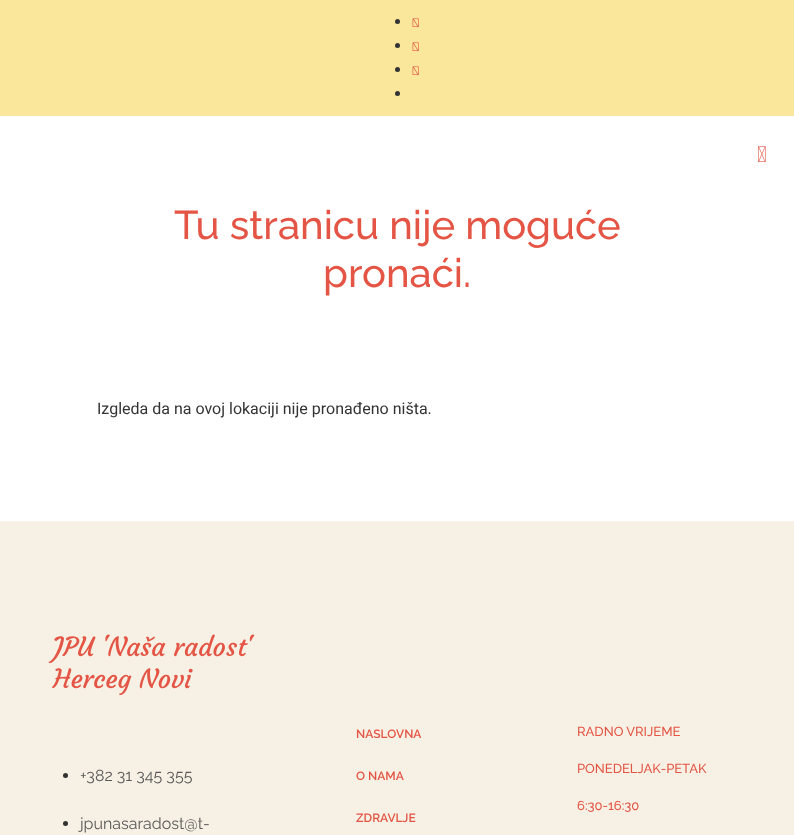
(async () => {
  const canvas = document.querySelector("canvas");
  canvas.width = 794;
  canvas.height = 835;
  const ctx = canvas.getContext("2d");
  ctx.miterLimit = 4;
  ctx.fontKerning = "normal";
  async function loadImage(src) {
    const img = new Image();
    img.src = src;
    await img.decode();
    return img;
  }

  ctx.fillStyle = "#ffffff";
  ctx.fillRect(0, 0, 794, 835);
  ctx.fillStyle = "#fae79b";
  ctx.fillRect(0, 0, 794, 116);
  ctx.fillStyle = "#333333";
  ctx.beginPath();
  ctx.arc(397.5, 21.5, 2.5, 0, Math.PI * 2);
  ctx.fill();
  ctx.drawImage(await loadImage("img/1.png"), 412, 18, 7, 9);
  ctx.beginPath();
  ctx.arc(397.5, 45.5, 2.5, 0, Math.PI * 2);
  ctx.fill();
  ctx.drawImage(await loadImage("img/1.png"), 412, 42, 7, 9);
  ctx.beginPath();
  ctx.arc(397.5, 69.5, 2.5, 0, Math.PI * 2);
  ctx.fill();
  ctx.drawImage(await loadImage("img/1.png"), 412, 66, 7, 9);
  ctx.beginPath();
  ctx.arc(397.5, 93.5, 2.5, 0, Math.PI * 2);
  ctx.fill();
  ctx.drawImage(await loadImage("img/2.png"), 758, 146, 8, 16);
  ctx.fillStyle = "#f6f1e4";
  ctx.fillRect(0, 521, 794, 314);
  ctx.fillStyle = "#333333";
  ctx.beginPath();
  ctx.arc(65.5, 775.5, 2.5, 0, Math.PI * 2);
  ctx.fill();
  ctx.beginPath();
  ctx.arc(65.5, 823.5, 2.5, 0, Math.PI * 2);
  ctx.fill();
  ctx.font = "500 40px Raleway";
  ctx.fillStyle = "#e45545";
  ctx.fillText("Tu stranicu nije moguće", 174, 239);
  ctx.fillText("pronaći.", 323, 287);
  ctx.font = "16px Roboto";
  ctx.fillStyle = "#333333";
  ctx.fillText("Izgleda da na ovoj lokaciji nije pronađeno ništa.", 97, 414);
  ctx.font = "26px Courgette";
  ctx.fillStyle = "#e45545";
  ctx.fillText("JPU 'Naša radost'", 53, 656);
  ctx.fillText("Herceg Novi", 53, 688);
  ctx.font = "16px Raleway";
  ctx.fillStyle = "#5a5858";
  ctx.fillText("+382 31 345 355", 80, 781);
  ctx.fillText("jpunasaradost@t-", 80, 829);
  ctx.font = "600 12px Raleway";
  ctx.fillStyle = "#e45545";
  for (const [text, x, y] of [
    ["NASLOVNA", 356, 738],
    ["O NAMA", 356, 780],
    ["ZDRAVLJE", 356, 822],
  ]) {
    ctx.fillText(text, x, y);
  }
  ctx.font = "500 13px Raleway";
  for (const [text, x, y] of [
    ["RADNO VRIJEME", 577, 736],
    ["PONEDELJAK-PETAK", 577, 773],
    ["6:30-16:30", 577, 810],
  ]) {
    ctx.fillText(text, x, y);
  }
})();
